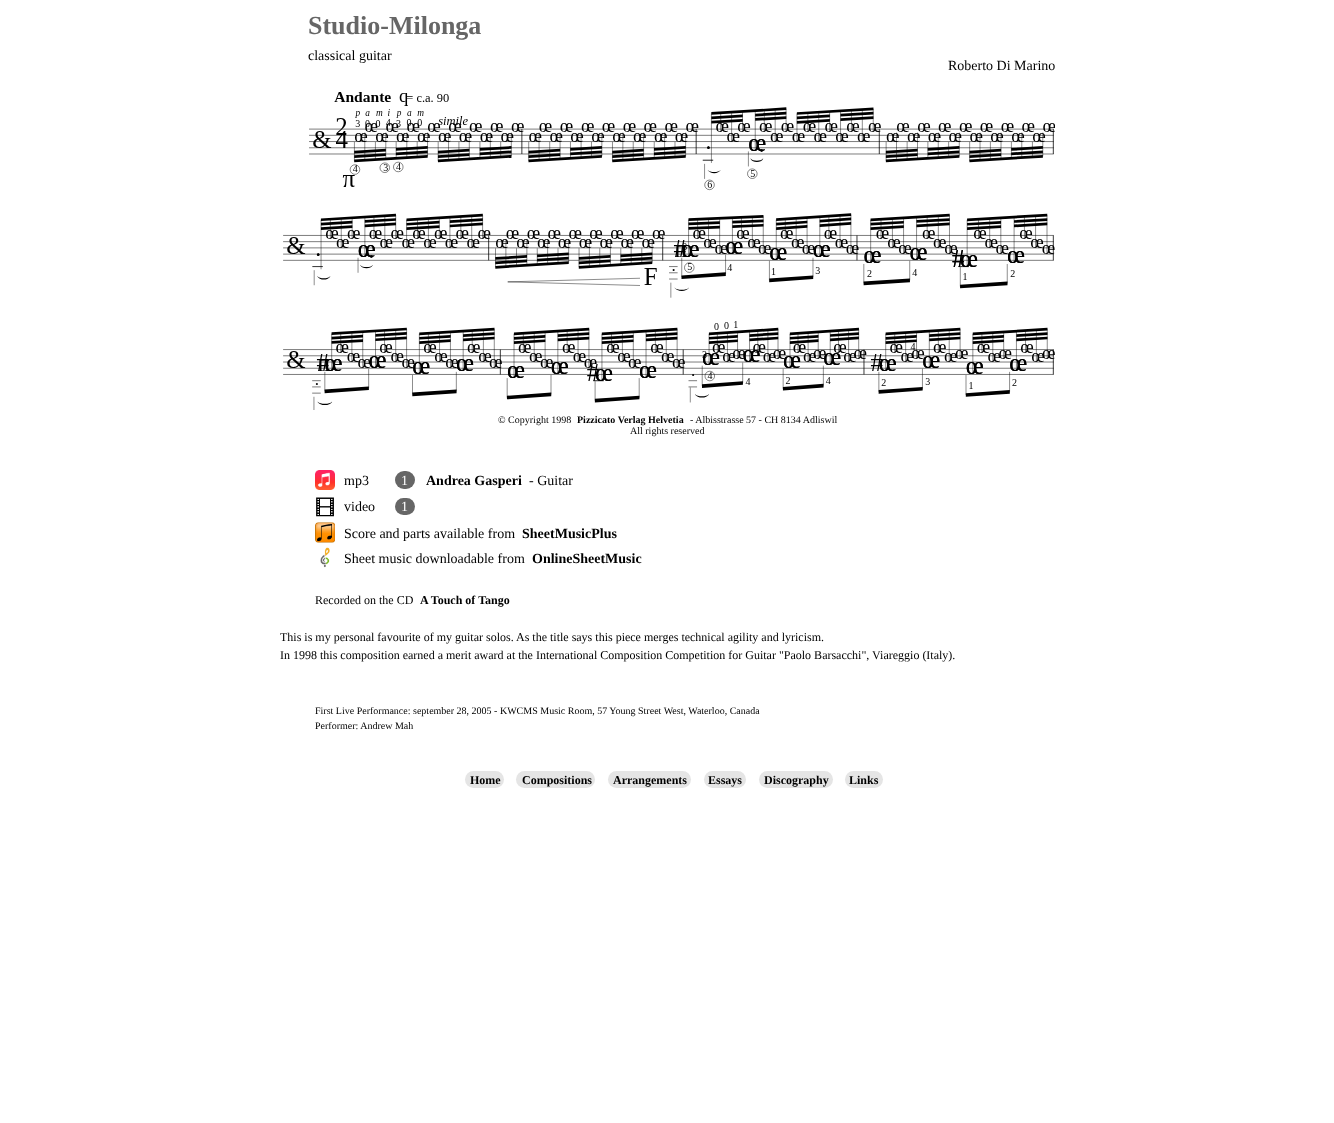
(async () => {
  const canvas = document.querySelector("canvas");
  canvas.width = 1334;
  canvas.height = 1123;
  const ctx = canvas.getContext("2d");
  ctx.miterLimit = 4;
  ctx.fontKerning = "normal";
  async function loadImage(src) {
    const img = new Image();
    img.src = src;
    await img.decode();
    return img;
  }

  ctx.fillStyle = "#ffffff";
  ctx.fillRect(0, 0, 1334, 1123);
  ctx.drawImage(await loadImage("img/1.png"), 283, 92, 772, 318);
  ctx.drawImage(await loadImage("img/2.png"), 315, 470, 20, 20);
  ctx.fillStyle = "#666666";
  ctx.beginPath();
  ctx.roundRect(395, 471, 20, 18, 9);
  ctx.fill();
  ctx.drawImage(await loadImage("img/3.png"), 316, 497, 18, 20);
  ctx.beginPath();
  ctx.roundRect(395, 498, 20, 17, 8.5);
  ctx.fill();
  ctx.drawImage(await loadImage("img/4.png"), 315, 522, 20, 21);
  ctx.drawImage(await loadImage("img/5.png"), 320, 547, 10, 21);
  ctx.fillStyle = "#e5e5e5";
  ctx.beginPath();
  ctx.roundRect(465, 771, 39, 17, 8.5);
  ctx.fill();
  ctx.beginPath();
  ctx.roundRect(516, 771, 79, 17, 8.5);
  ctx.fill();
  ctx.beginPath();
  ctx.roundRect(608, 771, 83, 17, 8.5);
  ctx.fill();
  ctx.beginPath();
  ctx.roundRect(704, 771, 42, 17, 8.5);
  ctx.fill();
  ctx.beginPath();
  ctx.roundRect(759, 771, 74, 17, 8.5);
  ctx.fill();
  ctx.beginPath();
  ctx.roundRect(845, 771, 38, 17, 8.5);
  ctx.fill();
  ctx.font = "bold 26px Liberation Serif";
  ctx.fillStyle = "#666666";
  ctx.fillText("Studio-Milonga", 308, 34);
  ctx.font = "14px Liberation Serif";
  ctx.fillStyle = "#000000";
  ctx.fillText("classical guitar", 308, 60);
  ctx.fillText("Roberto Di Marino", 948, 70);
  ctx.font = "10px Liberation Serif";
  ctx.fillText("© Copyright 1998", 498, 423);
  ctx.font = "bold 10px Liberation Serif";
  ctx.fillText("Pizzicato Verlag Helvetia", 577, 423);
  ctx.font = "10px Liberation Serif";
  ctx.fillText("- Albisstrasse 57 - CH 8134 Adliswil", 690, 423);
  ctx.fillText("All rights reserved", 630, 434);
  ctx.font = "14px Liberation Serif";
  ctx.fillText("mp3", 344, 485);
  ctx.fillStyle = "#ffffff";
  ctx.fillText("1", 401, 485);
  ctx.font = "bold 14px Liberation Serif";
  ctx.fillStyle = "#000000";
  ctx.fillText("Andrea Gasperi", 426, 485);
  ctx.font = "14px Liberation Serif";
  ctx.fillText("- Guitar", 529, 485);
  ctx.fillText("video", 344, 511);
  ctx.fillStyle = "#ffffff";
  ctx.fillText("1", 401, 511);
  ctx.fillStyle = "#000000";
  ctx.fillText("Score and parts available from", 344, 538);
  ctx.font = "bold 14px Liberation Serif";
  ctx.fillText("SheetMusicPlus", 522, 538);
  ctx.font = "14px Liberation Serif";
  ctx.fillText("Sheet music downloadable from", 344, 563);
  ctx.font = "bold 14px Liberation Serif";
  ctx.fillText("OnlineSheetMusic", 532, 563);
  ctx.font = "12px Liberation Serif";
  ctx.fillText("Recorded on the CD", 315, 604);
  ctx.font = "bold 12px Liberation Serif";
  ctx.fillText("A Touch of Tango", 420, 604);
  ctx.font = "12px Liberation Serif";
  ctx.fillText("This is my personal favourite of my guitar solos. As the title says this piece merges technical agility and lyricism.", 280, 641);
  ctx.fillText("In 1998 this composition earned a merit award at the International Composition Competition for Guitar \"Paolo Barsacchi\", Viareggio (Italy).", 280, 659);
  ctx.font = "10px Liberation Serif";
  ctx.fillText("First Live Performance: september 28, 2005 - KWCMS Music Room, 57 Young Street West, Waterloo, Canada", 315, 714);
  ctx.fillText("Performer: Andrew Mah", 315, 729);
  ctx.font = "bold 12px Liberation Serif";
  for (const [text, x, y] of [
    ["Home", 470, 784],
    ["Compositions", 522, 784],
    ["Arrangements", 613, 784],
    ["Essays", 708, 784],
    ["Discography", 764, 784],
    ["Links", 849, 784],
  ]) {
    ctx.fillText(text, x, y);
  }
})();
